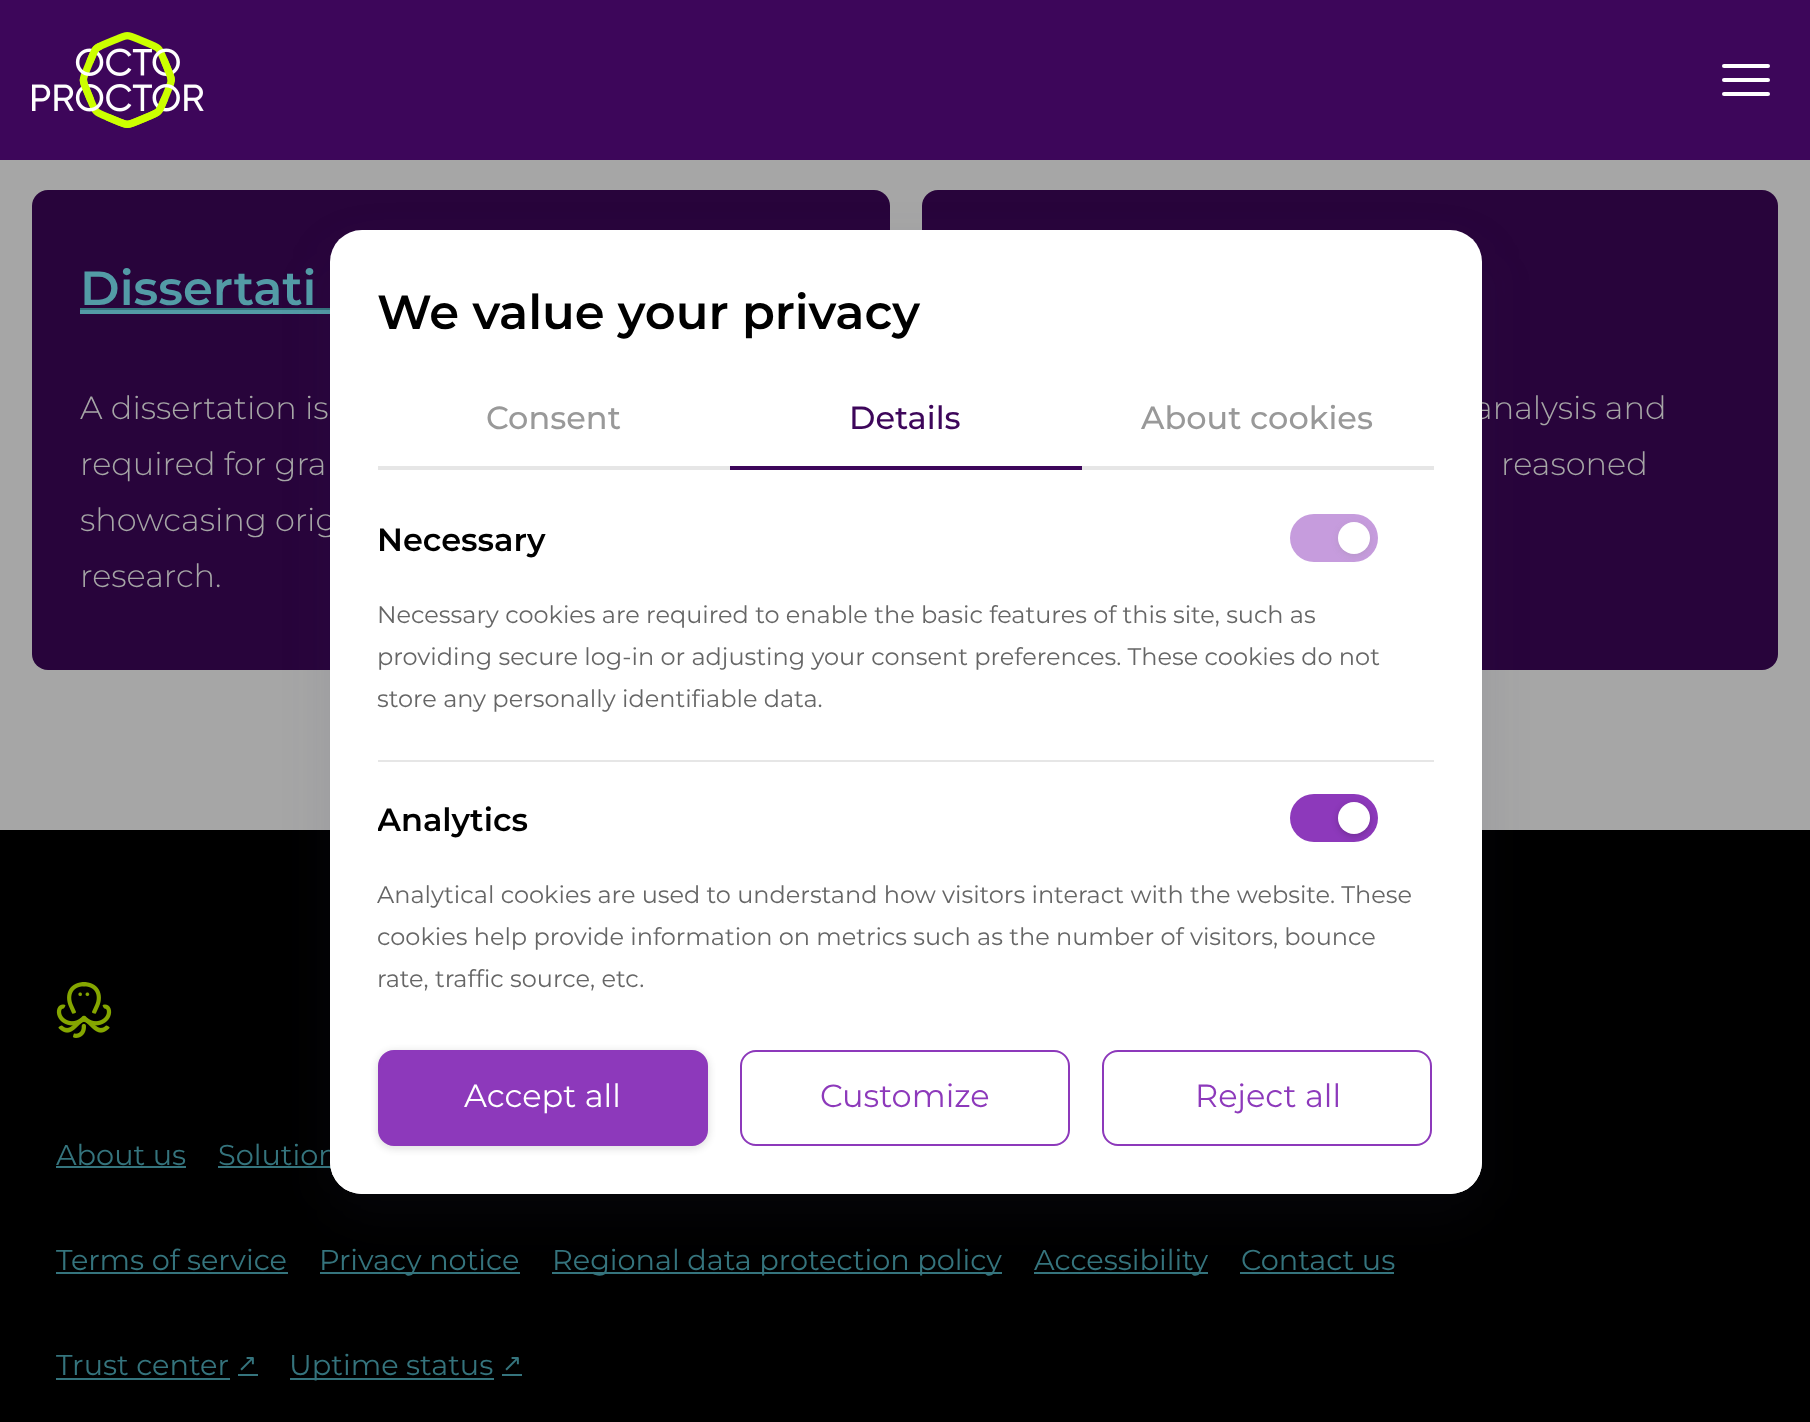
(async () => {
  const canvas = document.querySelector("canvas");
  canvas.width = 1810;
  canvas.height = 1422;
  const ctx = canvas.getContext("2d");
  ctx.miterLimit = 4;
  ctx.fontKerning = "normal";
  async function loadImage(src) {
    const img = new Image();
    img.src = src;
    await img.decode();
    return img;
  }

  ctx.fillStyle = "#000000";
  ctx.fillRect(0, 0, 1810, 1422);
  ctx.fillStyle = "#3d065a";
  ctx.fillRect(0, 0, 1810, 160);
  ctx.drawImage(await loadImage("img/1.png"), 32, 32, 172, 96);
  ctx.fillStyle = "#ffffff";
  ctx.beginPath();
  ctx.roundRect(1722, 64, 48, 4, 2);
  ctx.fill();
  ctx.beginPath();
  ctx.roundRect(1722, 78, 48, 4, 2);
  ctx.fill();
  ctx.beginPath();
  ctx.roundRect(1722, 92, 48, 4, 2);
  ctx.fill();
  ctx.fillStyle = "#a6a6a6";
  ctx.fillRect(0, 160, 1810, 670);
  ctx.fillStyle = "#28043b";
  ctx.beginPath();
  ctx.roundRect(32, 190, 858, 480, 16);
  ctx.fill();
  ctx.fillStyle = "#539ba6";
  ctx.fillRect(80, 310, 250, 4);
  ctx.fillStyle = "#35747d";
  ctx.fillRect(80, 308, 250, 2);
  ctx.fillStyle = "#28043b";
  ctx.beginPath();
  ctx.roundRect(922, 190, 856, 480, 16);
  ctx.fill();
  for (const [x, y, w, h, color] of [
    [218, 1166, 113, 2, "#35747d"],
    [56, 1272, 232, 2, "#35747d"],
    [320, 1272, 200, 2, "#35747d"],
    [552, 1272, 450, 2, "#35747d"],
    [1034, 1272, 174, 2, "#35747d"],
    [1240, 1272, 154, 2, "#35747d"],
  ]) {
    ctx.fillStyle = color;
    ctx.fillRect(x, y, w, h);
  }
  ctx.fillStyle = "rgba(50, 50, 93, 0.1)";
  ctx.filter = "blur(25px)";
  ctx.beginPath();
  ctx.roundRect(330, 250, 1152, 964, 32);
  ctx.fill();
  ctx.filter = "none";
  ctx.drawImage(await loadImage("img/2.png"), 56, 982, 56, 56);
  for (const [x, y, w, h, color] of [
    [56, 1166, 130, 2, "#35747d"],
    [56, 1378, 174, 2, "#35747d"],
    [238, 1374, 20, 2, "#35747d"],
    [290, 1378, 204, 2, "#35747d"],
    [502, 1374, 20, 2, "#35747d"],
  ]) {
    ctx.fillStyle = color;
    ctx.fillRect(x, y, w, h);
  }
  ctx.font = "600 48px Montserrat";
  ctx.fillStyle = "#539ba6";
  ctx.fillText("Dissertati", 80, 305);
  ctx.font = "300 32px Montserrat";
  ctx.fillStyle = "#a6a6a6";
  for (const [text, x, y] of [
    ["A dissertation is", 80, 419],
    ["required for gra", 80, 475],
    ["showcasing orig", 80, 531],
    ["research.", 80, 587],
    ["analysis and", 1474, 419],
    ["reasoned", 1501, 475],
  ]) {
    ctx.fillText(text, x, y);
  }
  ctx.font = "28.75px Montserrat";
  ctx.fillStyle = "#35747d";
  ctx.fillText("About us", 56, 1165);
  ctx.fillText("Solution", 218, 1165);
  ctx.fillStyle = "#ffffff";
  ctx.beginPath();
  ctx.roundRect(330, 230, 1152, 964, 32);
  ctx.fill();
  ctx.fillStyle = "#8d39bb";
  ctx.beginPath();
  ctx.roundRect(1290, 794, 88, 48, 24);
  ctx.fill();
  ctx.fillStyle = "rgba(0, 0, 0, 0.2)";
  ctx.filter = "blur(3px)";
  ctx.beginPath();
  ctx.roundRect(1338, 804, 32, 32, 16);
  ctx.fill();
  ctx.filter = "none";
  ctx.fillStyle = "#ffffff";
  ctx.beginPath();
  ctx.arc(1354, 818, 16, 0, Math.PI * 2);
  ctx.fill();
  ctx.fillStyle = "#c69cdd";
  ctx.beginPath();
  ctx.roundRect(1290, 514, 88, 48, 24);
  ctx.fill();
  ctx.fillStyle = "rgba(128, 128, 128, 0.2)";
  ctx.filter = "blur(3px)";
  ctx.beginPath();
  ctx.roundRect(1338, 524, 32, 32, 16);
  ctx.fill();
  ctx.filter = "none";
  ctx.fillStyle = "#ffffff";
  ctx.beginPath();
  ctx.arc(1354, 538, 16, 0, Math.PI * 2);
  ctx.fill();
  ctx.font = "24px Montserrat";
  ctx.fillStyle = "#666666";
  for (const [text, x, y] of [
    ["rate, traffic source, etc.", 377, 987],
    ["cookies help provide information on metrics such as the number of visitors, bounce", 377, 945],
    ["Analytical cookies are used to understand how visitors interact with the website. These", 377, 903],
  ]) {
    ctx.fillText(text, x, y);
  }
  ctx.save();
  ctx.beginPath();
  ctx.rect(378, 482, 1056, 512);
  ctx.clip();
  ctx.font = "600 32px Montserrat";
  ctx.fillStyle = "#000000";
  ctx.fillText("Analytics", 377, 831);
  ctx.restore();
  for (const [text, x, y] of [
    ["store any personally identifiable data.", 377, 707],
    ["providing secure log-in or adjusting your consent preferences. These cookies do not", 377, 665],
    ["Necessary cookies are required to enable the basic features of this site, such as", 377, 623],
  ]) {
    ctx.fillText(text, x, y);
  }
  ctx.font = "600 32px Montserrat";
  ctx.fillStyle = "#000000";
  ctx.fillText("Necessary", 377, 551);
  ctx.fillStyle = "#e6e6e6";
  ctx.fillRect(378, 760, 1056, 2);
  ctx.font = "500 32px Montserrat";
  ctx.fillStyle = "#999999";
  ctx.fillText("About cookies", 1141, 429);
  ctx.fillStyle = "#e6e6e6";
  ctx.fillRect(1082, 466, 352, 4);
  ctx.fillStyle = "#3d065a";
  ctx.fillText("Details", 849, 429);
  ctx.fillRect(730, 466, 352, 4);
  ctx.fillStyle = "#999999";
  ctx.fillText("Consent", 486, 429);
  ctx.fillStyle = "#e6e6e6";
  ctx.fillRect(378, 466, 352, 4);
  ctx.fillStyle = "#ffffff";
  ctx.beginPath();
  ctx.roundRect(330, 994, 1152, 200, [0, 0, 32, 32]);
  ctx.fill();
  ctx.beginPath();
  ctx.roundRect(1103, 1051, 328, 94, 15);
  ctx.strokeStyle = "#8d39bb";
  ctx.lineWidth = 2;
  ctx.stroke();
  ctx.font = "32px Montserrat";
  ctx.fillStyle = "#8d39bb";
  ctx.fillText("Reject all", 1195, 1107);
  ctx.beginPath();
  ctx.roundRect(741, 1051, 328, 94, 15);
  ctx.stroke();
  ctx.fillText("Customize", 820, 1107);
  ctx.fillStyle = "rgba(12, 12, 13, 0.05)";
  ctx.filter = "blur(4px)";
  ctx.beginPath();
  ctx.roundRect(378, 1052, 330, 96, 16);
  ctx.fill();
  ctx.filter = "none";
  ctx.fillStyle = "rgba(12, 12, 13, 0.1)";
  ctx.filter = "blur(4px)";
  ctx.beginPath();
  ctx.roundRect(378, 1052, 330, 96, 16);
  ctx.fill();
  ctx.filter = "none";
  ctx.fillStyle = "#8d39bb";
  ctx.beginPath();
  ctx.roundRect(379, 1051, 328, 94, 15);
  ctx.fill();
  ctx.stroke();
  ctx.fillStyle = "#ffffff";
  ctx.fillText("Accept all", 464, 1107);
  ctx.font = "600 48px Montserrat";
  ctx.fillStyle = "#000000";
  ctx.fillText("We value your privacy", 377, 329);
  ctx.font = "28.75px Montserrat";
  ctx.fillStyle = "#35747d";
  for (const [text, x, y] of [
    ["Terms of service", 56, 1270],
    ["Privacy notice", 319, 1270],
    ["Regional data protection policy", 552, 1270],
    ["Accessibility", 1034, 1270],
    ["Contact us", 1241, 1270],
    ["Trust center", 56, 1375],
  ]) {
    ctx.fillText(text, x, y);
  }
  ctx.font = "24px DejaVu Sans";
  ctx.fillText("↗︎", 237, 1371);
  ctx.font = "28.75px Montserrat";
  ctx.fillText("Uptime status", 289, 1375);
  ctx.font = "24px DejaVu Sans";
  ctx.fillText("↗︎", 502, 1371);
})();
